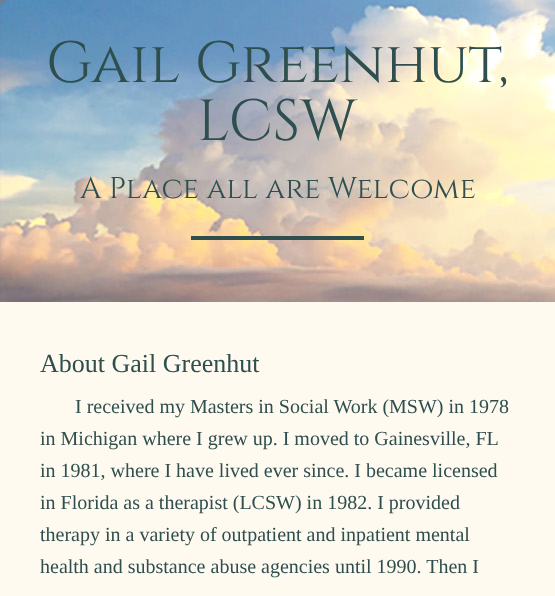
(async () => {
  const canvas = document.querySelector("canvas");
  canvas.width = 555;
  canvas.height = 596;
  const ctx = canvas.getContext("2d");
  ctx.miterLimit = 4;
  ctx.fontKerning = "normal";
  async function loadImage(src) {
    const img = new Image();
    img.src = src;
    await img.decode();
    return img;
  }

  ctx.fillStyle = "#fffaf0";
  ctx.fillRect(0, 0, 555, 596);
  ctx.drawImage(await loadImage("img/1.png"), 0, 0, 555, 302);
  ctx.fillStyle = "#2f4f4f";
  ctx.fillRect(191, 236, 173, 4);
  ctx.font = "58px Cinzel";
  ctx.fillText("Gail Greenhut,", 46, 82);
  ctx.fillText("LCSW", 197, 140);
  ctx.font = "30px Cinzel";
  ctx.fillText("A Place all are Welcome", 80, 198);
  ctx.font = "26px Liberation Serif";
  ctx.fillText("About Gail Greenhut", 40, 372);
  ctx.font = "20px Liberation Serif";
  for (const [text, x, y] of [
    ["I received my Masters in Social Work (MSW) in 1978", 75, 413],
    ["in Michigan where I grew up. I moved to Gainesville, FL", 40, 445],
    ["in 1981, where I have lived ever since. I became licensed", 40, 477],
    ["in Florida as a therapist (LCSW) in 1982. I provided", 40, 509],
    ["therapy in a variety of outpatient and inpatient mental", 40, 541],
    ["health and substance abuse agencies until 1990. Then I", 40, 573],
  ]) {
    ctx.fillText(text, x, y);
  }
})();
